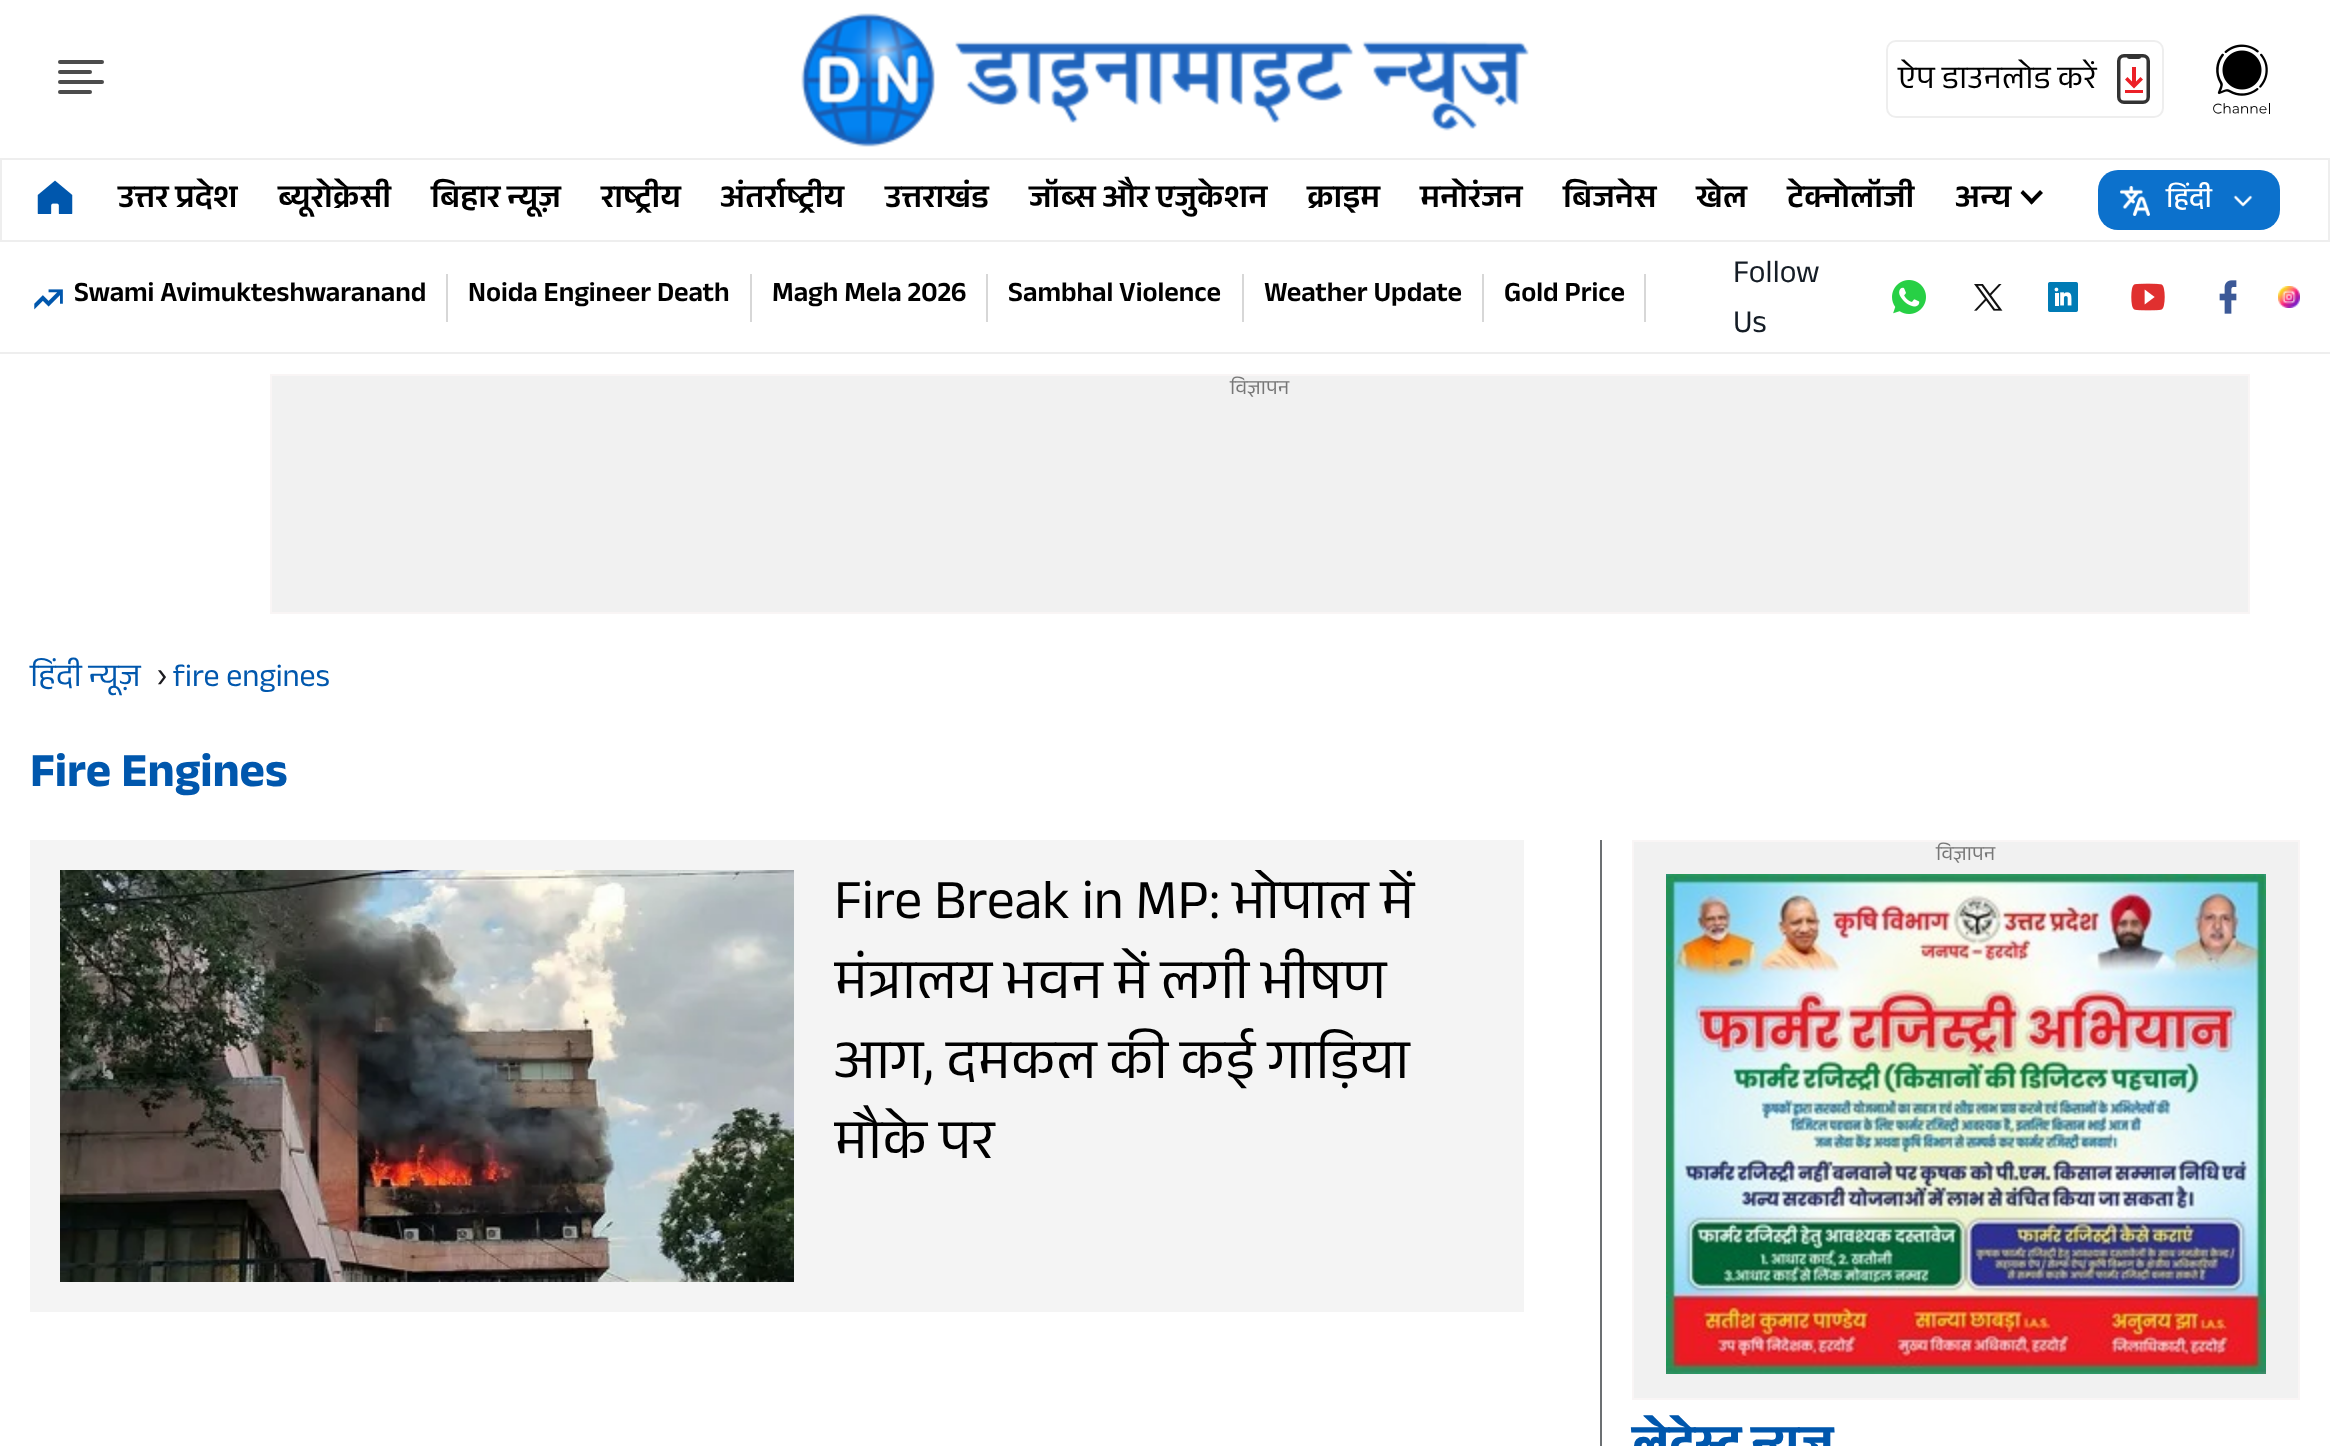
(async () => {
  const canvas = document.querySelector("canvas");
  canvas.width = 2330;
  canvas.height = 1446;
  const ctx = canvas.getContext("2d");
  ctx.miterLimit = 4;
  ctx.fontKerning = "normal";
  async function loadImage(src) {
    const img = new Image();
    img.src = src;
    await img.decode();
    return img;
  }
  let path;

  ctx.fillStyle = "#ffffff";
  ctx.fillRect(0, 0, 2330, 1446);
  ctx.fillStyle = "#4c4c4c";
  ctx.beginPath();
  ctx.roundRect(58, 60, 46, 4, 2);
  ctx.fill();
  ctx.beginPath();
  ctx.roundRect(58, 70, 34, 4, 2);
  ctx.fill();
  ctx.beginPath();
  ctx.roundRect(58, 80, 46, 4, 2);
  ctx.fill();
  ctx.beginPath();
  ctx.roundRect(58, 90, 34, 4, 2);
  ctx.fill();
  ctx.drawImage(await loadImage("img/1.png"), 801, 13, 728, 134);
  ctx.beginPath();
  ctx.roundRect(1887, 41, 276, 76, 9);
  ctx.strokeStyle = "#eeeeee";
  ctx.lineWidth = 2;
  ctx.stroke();
  ctx.beginPath();
  ctx.roundRect(2118.75, 55.75, 29.5, 46.5, 5.25);
  ctx.strokeStyle = "#333333";
  ctx.lineWidth = 3.5;
  ctx.stroke();
  ctx.fillStyle = "#333333";
  ctx.beginPath();
  ctx.roundRect(2127, 54, 14, 5, 2.5);
  ctx.fill();
  ctx.fillStyle = "#ec2027";
  ctx.fillRect(2125, 90, 18, 3);
  path = new Path2D("M2134 88.5L2125 79.5L2127.5 77L2132 81.5V67H2136V81.5L2140.5 77L2143 79.5Z");
  ctx.fill(path);
  ctx.drawImage(await loadImage("img/2.png"), 2213, 44, 57, 70);
  ctx.strokeStyle = "#eeeeee";
  ctx.lineWidth = 2;
  ctx.strokeRect(1, 159, 2328, 82);
  ctx.drawImage(await loadImage("img/3.png"), 37, 180, 36, 34);
  ctx.fillStyle = "#000000";
  path = new Path2D("M2040 190L2043 193L2031.5 204.5L2029 201.5Z");
  ctx.fill(path);
  path = new Path2D("M2023 190L2034.5 201.5L2031.5 204.5L2020.5 193Z");
  ctx.fill(path);
  ctx.fillStyle = "#0c71cc";
  ctx.beginPath();
  ctx.roundRect(2098, 170, 182, 60, 20);
  ctx.fill();
  ctx.drawImage(await loadImage("img/4.png"), 2120, 186, 30, 30);
  ctx.drawImage(await loadImage("img/5.png"), 2233, 195, 20, 12);
  ctx.fillStyle = "#eeeeee";
  ctx.fillRect(0, 352, 2330, 2);
  ctx.drawImage(await loadImage("img/6.png"), 34, 289, 29, 21);
  for (const [x, y, w, h, color] of [
    [446, 274, 2, 48, "#d7d7d7"],
    [750, 274, 2, 48, "#d7d7d7"],
    [986, 274, 2, 48, "#d7d7d7"],
    [1242, 274, 2, 48, "#d7d7d7"],
    [1482, 274, 2, 48, "#d7d7d7"],
    [1644, 274, 2, 48, "#d7d7d7"],
  ]) {
    ctx.fillStyle = color;
    ctx.fillRect(x, y, w, h);
  }
  ctx.drawImage(await loadImage("img/7.png"), 1892, 280, 34, 34);
  ctx.drawImage(await loadImage("img/8.png"), 1974, 284, 29, 27);
  ctx.drawImage(await loadImage("img/9.png"), 2048, 282, 30, 30);
  ctx.drawImage(await loadImage("img/10.png"), 2131, 283, 34, 28);
  ctx.drawImage(await loadImage("img/11.png"), 2219, 280, 18, 34);
  ctx.drawImage(await loadImage("img/12.png"), 2278, 286, 22, 22);
  ctx.fillStyle = "#f1f1f1";
  ctx.beginPath();
  ctx.rect(271, 375, 1978, 238);
  ctx.fill();
  ctx.strokeStyle = "#f9f5f5";
  ctx.stroke();
  ctx.fillStyle = "#f4f4f4";
  ctx.fillRect(30, 840, 1494, 472);
  ctx.drawImage(await loadImage("img/13.png"), 60, 870, 734, 412);
  ctx.fillStyle = "#6c7073";
  ctx.fillRect(1600, 840, 2, 606);
  ctx.fillStyle = "#f1f1f1";
  ctx.beginPath();
  ctx.rect(1633, 841, 666, 558);
  ctx.fill();
  ctx.stroke();
  ctx.drawImage(await loadImage("img/14.png"), 1666, 874, 600, 500);
  ctx.font = "32px Anek Devanagari";
  ctx.fillStyle = "#000000";
  ctx.fillText("ऐप डाउनलोड करें", 1898, 88);
  ctx.font = "600 32px Anek Devanagari";
  for (const [text, x, y] of [
    ["उत्तर प्रदेश", 118, 207],
    ["ब्यूरोक्रेसी", 278, 207],
    ["बिहार न्यूज़", 431, 207],
    ["राष्ट्रीय", 601, 207],
    ["अंतर्राष्ट्रीय", 720, 207],
    ["उत्तराखंड", 885, 207],
    ["जॉब्स और एजुकेशन", 1029, 207],
    ["क्राइम", 1307, 207],
    ["मनोरंजन", 1420, 207],
    ["बिजनेस", 1563, 207],
    ["खेल", 1696, 207],
    ["टेक्नोलॉजी", 1787, 207],
    ["अन्य", 1955, 207],
  ]) {
    ctx.fillText(text, x, y);
  }
  ctx.font = "500 28px Anek Devanagari";
  ctx.fillStyle = "#ffffff";
  ctx.fillText("हिंदी", 2166, 207);
  ctx.font = "600 28px Anek Devanagari";
  ctx.fillStyle = "#000000";
  for (const [text, x, y] of [
    ["Swami Avimukteshwaranand", 74, 301],
    ["Noida Engineer Death", 468, 301],
    ["Magh Mela 2026", 772, 301],
    ["Sambhal Violence", 1008, 301],
    ["Weather Update", 1264, 301],
    ["Gold Price", 1504, 301],
  ]) {
    ctx.fillText(text, x, y);
  }
  ctx.font = "32px Anek Devanagari";
  ctx.fillStyle = "#151d26";
  ctx.fillText("Follow", 1733, 282);
  ctx.fillText("Us", 1733, 332);
  ctx.font = "20px Anek Devanagari";
  ctx.fillStyle = "#777777";
  ctx.fillText("विज्ञापन", 1230, 394);
  ctx.font = "32px Anek Devanagari";
  ctx.fillStyle = "#0057ad";
  ctx.fillText("हिंदी न्यूज़", 30, 686);
  ctx.font = "36px Anek Devanagari";
  ctx.fillStyle = "#1c1b1f";
  ctx.fillText("›", 157, 686);
  ctx.font = "32px Anek Devanagari";
  ctx.fillStyle = "#0057ad";
  ctx.fillText("fire engines", 173, 686);
  ctx.font = "bold 48px Anek Devanagari";
  ctx.fillText("Fire Engines", 30, 786);
  ctx.save();
  ctx.beginPath();
  ctx.rect(834, 870, 660, 320);
  ctx.clip();
  ctx.font = "56px Anek Devanagari";
  ctx.fillStyle = "#000000";
  ctx.fillText("Fire Break in MP: भोपाल में", 834, 918);
  ctx.fillText("मंत्रालय भवन में लगी भीषण", 834, 998);
  ctx.restore();
  ctx.font = "56px Anek Devanagari";
  ctx.fillStyle = "#000000";
  ctx.fillText("आग, दमकल की कई गाड़िया", 834, 1078);
  ctx.save();
  ctx.beginPath();
  ctx.rect(834, 870, 660, 320);
  ctx.clip();
  ctx.fillText("मौके पर", 834, 1158);
  ctx.restore();
  ctx.font = "20px Anek Devanagari";
  ctx.fillStyle = "#777777";
  ctx.fillText("विज्ञापन", 1936, 860);
  ctx.font = "bold 48px Anek Devanagari";
  ctx.fillStyle = "#0057ad";
  ctx.fillText("लेटेस्ट न्यूज़", 1632, 1458);
})();
